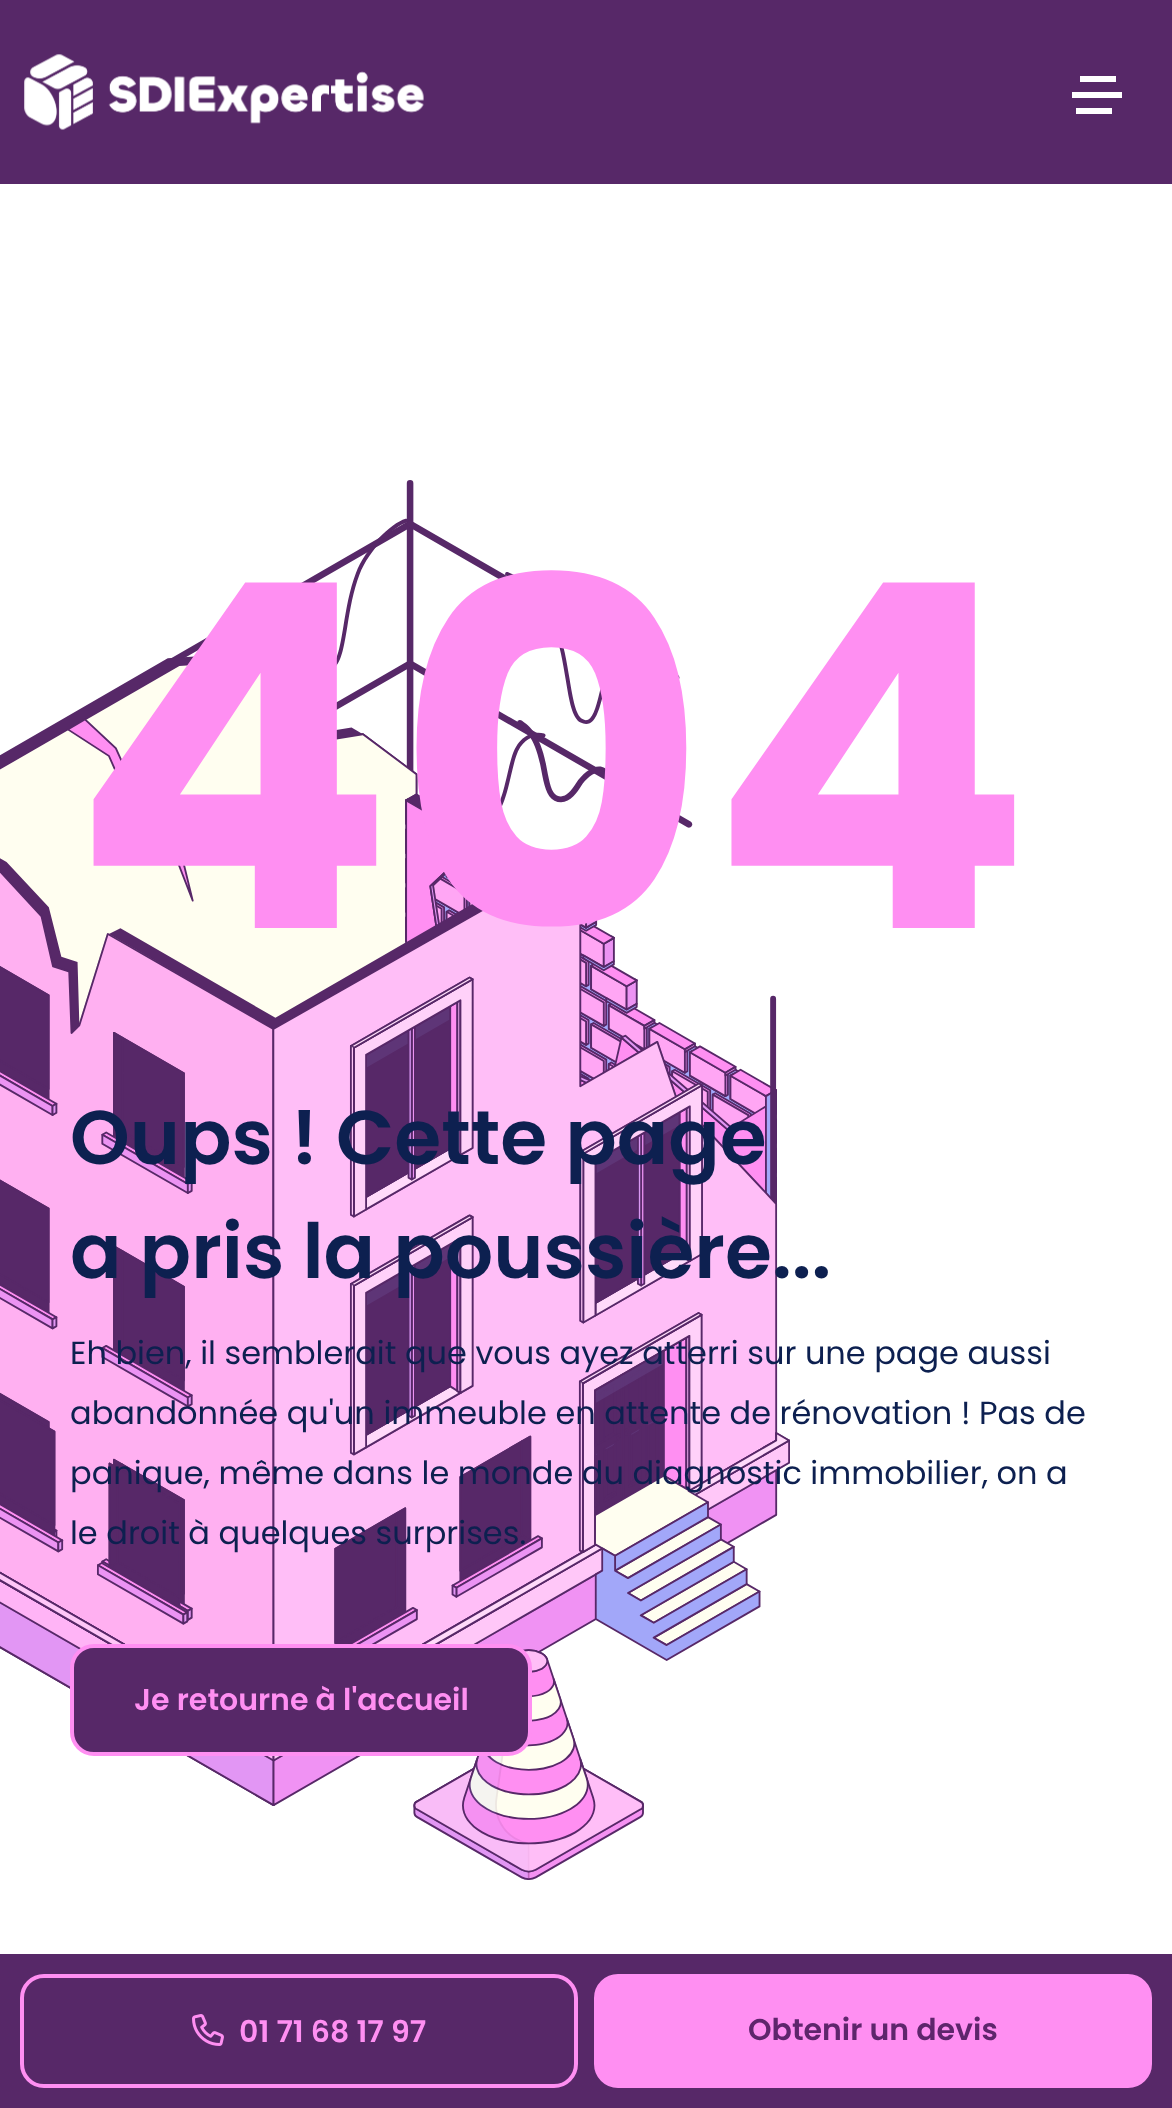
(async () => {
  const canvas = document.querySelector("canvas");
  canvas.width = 1172;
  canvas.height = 2108;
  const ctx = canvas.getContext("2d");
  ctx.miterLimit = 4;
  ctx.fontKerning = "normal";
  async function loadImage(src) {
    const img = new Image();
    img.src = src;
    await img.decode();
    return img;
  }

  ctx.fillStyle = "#ffffff";
  ctx.fillRect(0, 0, 1172, 2108);
  ctx.fillStyle = "#572868";
  ctx.fillRect(0, 0, 1172, 184);
  ctx.drawImage(await loadImage("img/1.png"), 24, 54, 400, 76);
  for (const [x, y, w, h, color] of [
    [1080, 76, 36, 6, "#ffffff"],
    [1072, 92, 50, 6, "#ffffff"],
    [1076, 108, 36, 6, "#ffffff"],
  ]) {
    ctx.fillStyle = color;
    ctx.fillRect(x, y, w, h);
  }
  ctx.drawImage(await loadImage("img/2.png"), 0, 480, 790, 1400);
  ctx.fillStyle = "#572868";
  ctx.beginPath();
  ctx.roundRect(72, 1646, 458, 108, 22);
  ctx.fill();
  ctx.strokeStyle = "#ff8ff2";
  ctx.lineWidth = 4;
  ctx.stroke();
  ctx.fillRect(0, 1954, 1172, 154);
  ctx.beginPath();
  ctx.roundRect(22, 1976, 554, 110, 22);
  ctx.stroke();
  ctx.drawImage(await loadImage("img/3.png"), 192, 2014, 32, 32);
  ctx.fillStyle = "#ff8ff2";
  ctx.beginPath();
  ctx.roundRect(596, 1976, 554, 110, 22);
  ctx.fill();
  ctx.stroke();
  ctx.font = "bold 480px Poppins";
  ctx.fillText("404", 70, 928);
  ctx.font = "600 76px Poppins";
  ctx.fillStyle = "#0d2050";
  ctx.fillText("Oups ! Cette page", 70, 1164);
  ctx.fillText("a pris la poussière...", 70, 1278);
  ctx.font = "32px Poppins";
  for (const [text, x, y] of [
    ["Eh bien, il semblerait que vous ayez atterri sur une page aussi", 70, 1364],
    ["abandonnée qu'un immeuble en attente de rénovation ! Pas de", 70, 1424],
    ["panique, même dans le monde du diagnostic immobilier, on a", 70, 1484],
    ["le droit à quelques surprises.", 70, 1544],
  ]) {
    ctx.fillText(text, x, y);
  }
  ctx.font = "600 30px Poppins";
  ctx.fillStyle = "#ff8ff2";
  ctx.fillText("Je retourne à l'accueil", 134, 1710);
  ctx.fillText("01 71 68 17 97", 239, 2042);
  ctx.fillStyle = "#5e256c";
  ctx.fillText("Obtenir un devis", 748, 2040);
})();
